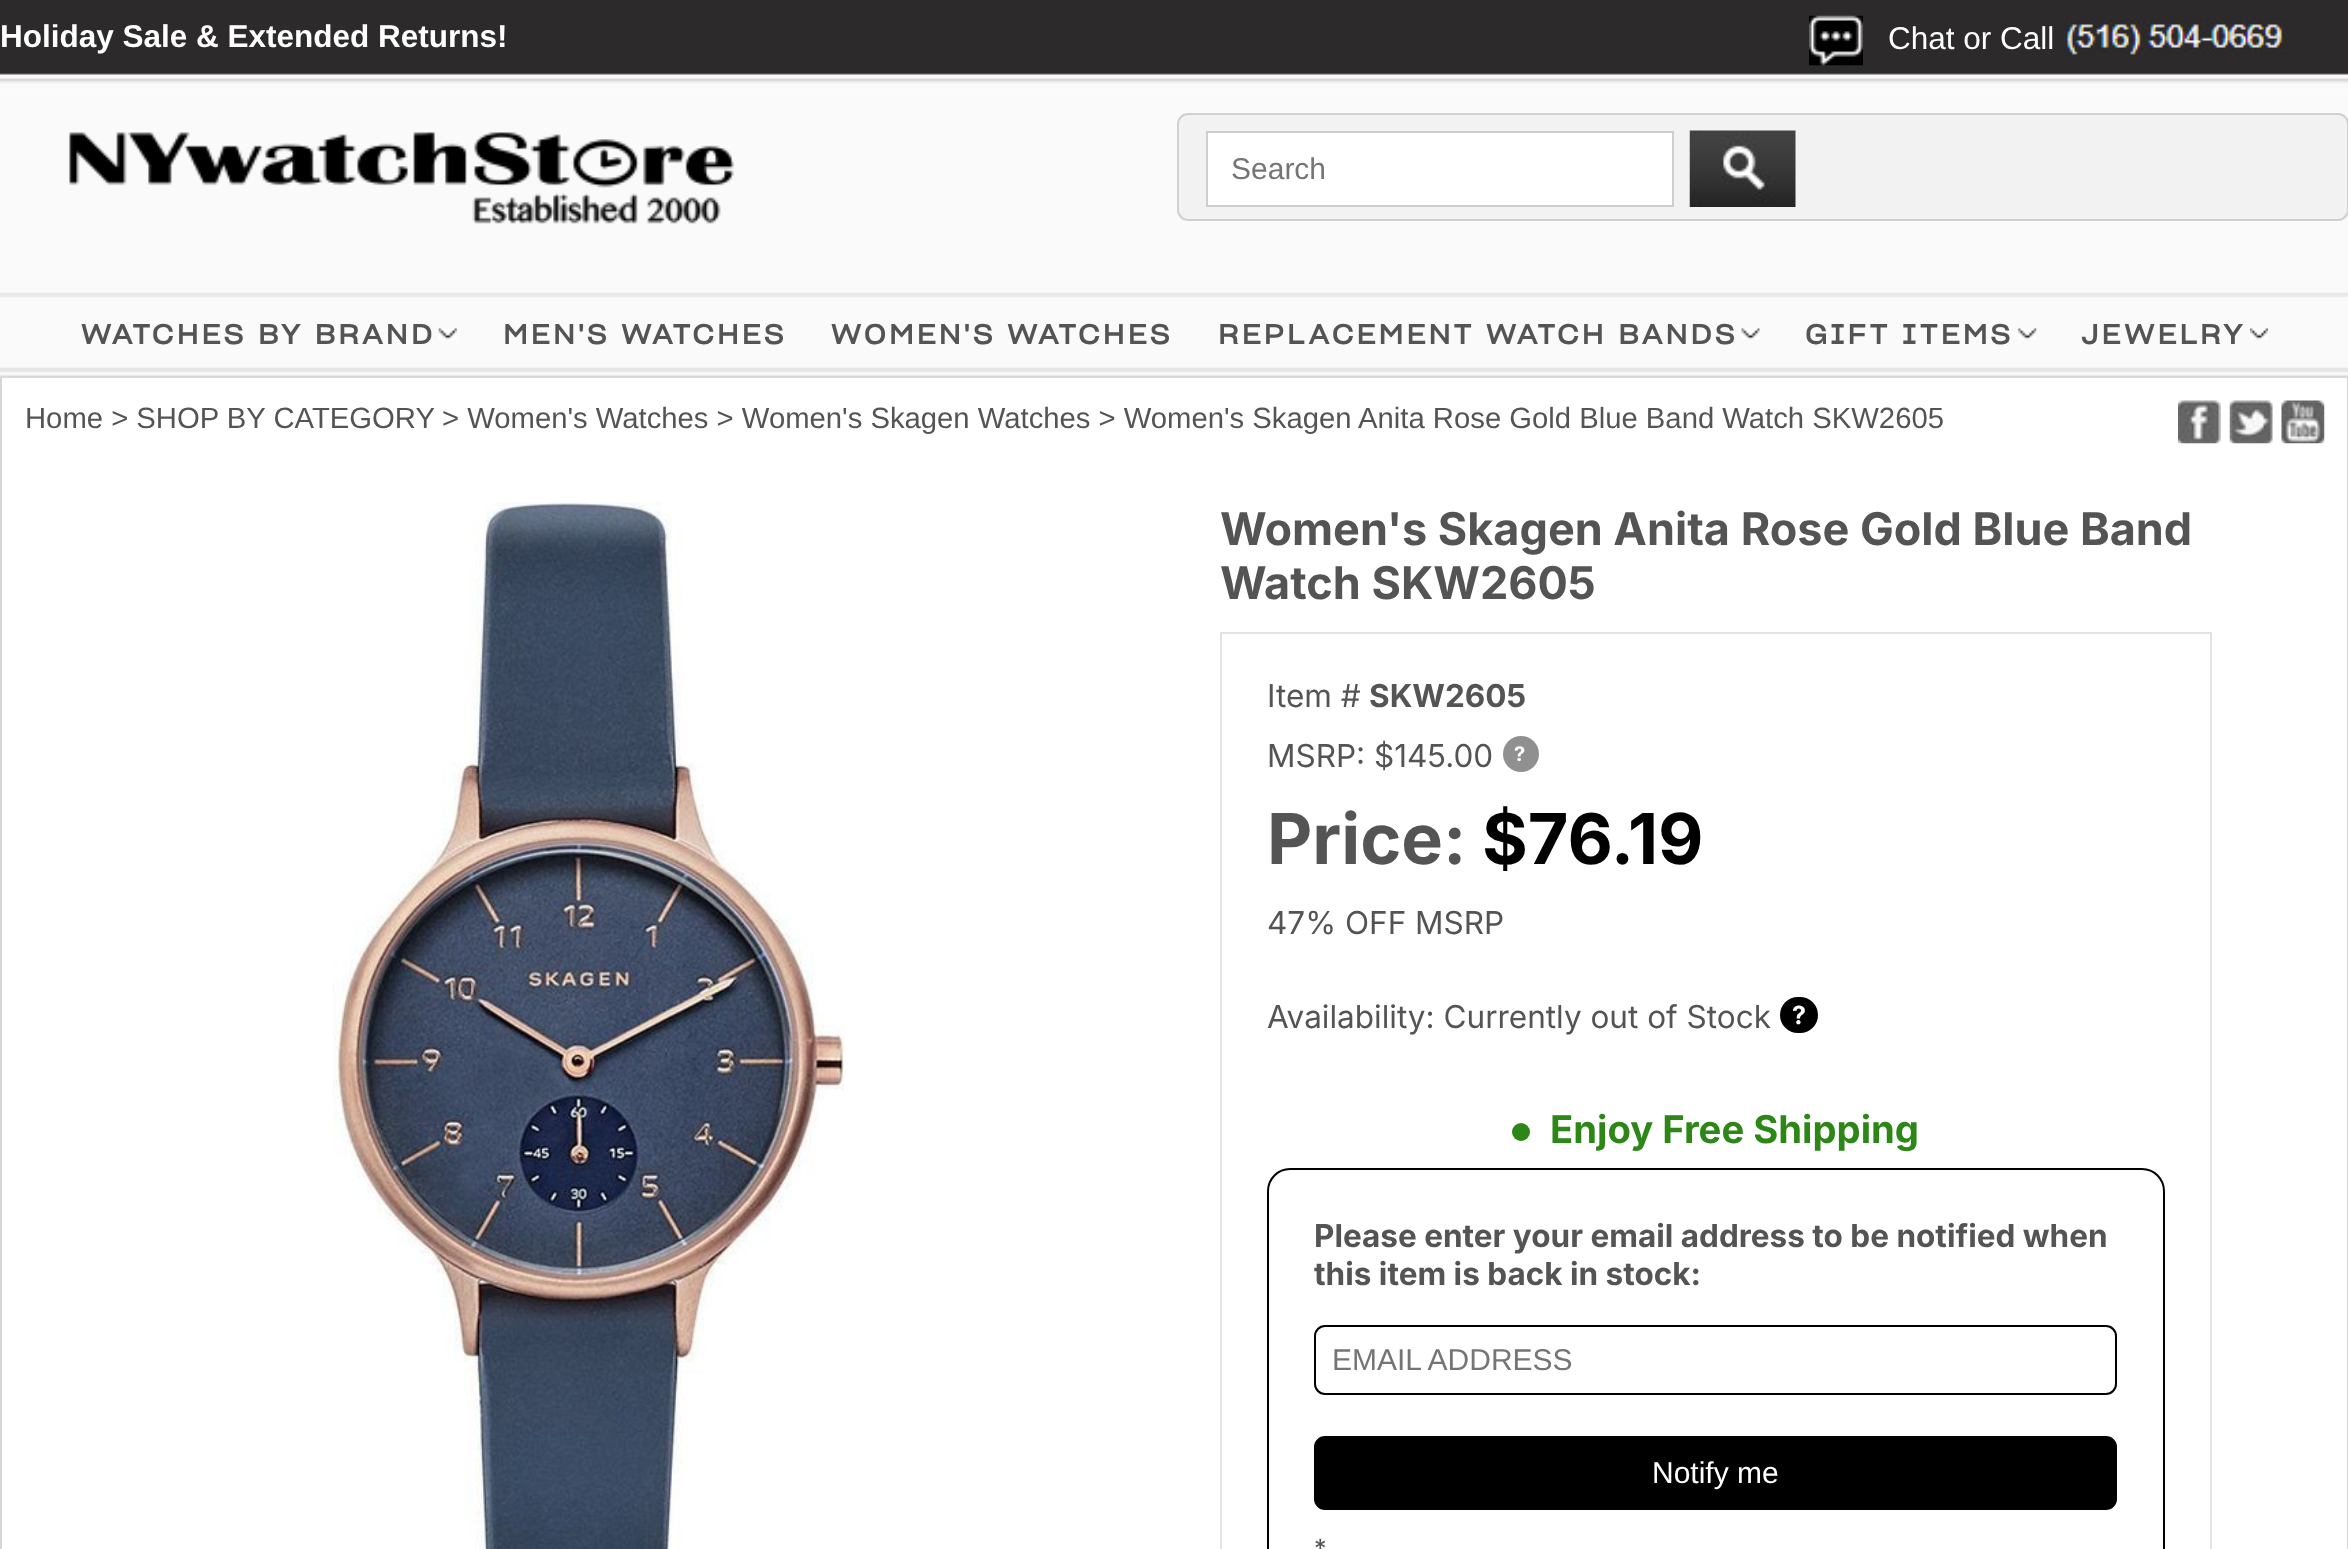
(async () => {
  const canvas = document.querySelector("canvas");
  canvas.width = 2348;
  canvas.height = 1549;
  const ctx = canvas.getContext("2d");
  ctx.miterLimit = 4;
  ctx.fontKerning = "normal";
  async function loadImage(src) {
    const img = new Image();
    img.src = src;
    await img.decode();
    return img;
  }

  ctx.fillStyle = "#ffffff";
  ctx.fillRect(0, 0, 2348, 1549);
  ctx.drawImage(await loadImage("img/1.png"), 0, 0, 2348, 378);
  ctx.drawImage(await loadImage("img/2.png"), 1809, 15, 54, 51);
  ctx.drawImage(await loadImage("img/3.png"), 2063, 18, 225, 37);
  ctx.drawImage(await loadImage("img/4.png"), 69, 132, 665, 92);
  ctx.fillStyle = "#f2f2f2";
  ctx.beginPath();
  ctx.roundRect(1178, 114, 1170, 106, 10);
  ctx.fill();
  ctx.strokeStyle = "#d0d0d0";
  ctx.lineWidth = 2;
  ctx.stroke();
  ctx.fillStyle = "#ffffff";
  ctx.beginPath();
  ctx.rect(1207, 132, 466, 74);
  ctx.fill();
  ctx.strokeStyle = "#cecece";
  ctx.stroke();
  ctx.drawImage(await loadImage("img/5.png"), 1689, 130, 107, 77);
  ctx.fillStyle = "#e4e4e4";
  ctx.fillRect(0, 369, 2348, 2);
  ctx.drawImage(await loadImage("img/6.png"), 438, 328, 19, 12);
  ctx.drawImage(await loadImage("img/7.png"), 1741, 328, 19, 12);
  ctx.drawImage(await loadImage("img/8.png"), 2018, 328, 19, 12);
  ctx.drawImage(await loadImage("img/9.png"), 2250, 328, 18, 12);
  ctx.fillStyle = "#d6d6d6";
  ctx.fillRect(2347, 378, 1, 1171);
  ctx.fillRect(0, 378, 2, 1171);
  ctx.drawImage(await loadImage("img/10.png"), 2178, 400, 43, 44);
  ctx.drawImage(await loadImage("img/11.png"), 2229, 400, 44, 44);
  ctx.drawImage(await loadImage("img/12.png"), 2281, 400, 44, 44);
  ctx.drawImage(await loadImage("img/13.png"), 333, 502, 511, 1047);
  ctx.strokeStyle = "#e4e4e4";
  ctx.strokeRect(1221, 633, 990, 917);
  ctx.fillStyle = "#909090";
  ctx.beginPath();
  ctx.arc(1521, 754, 18, 0, Math.PI * 2);
  ctx.fill();
  ctx.fillStyle = "#000000";
  ctx.beginPath();
  ctx.roundRect(1780, 997, 38, 36, 18);
  ctx.fill();
  ctx.fillStyle = "#2c8717";
  ctx.beginPath();
  ctx.arc(1521, 1132, 9, 0, Math.PI * 2);
  ctx.fill();
  ctx.beginPath();
  ctx.roundRect(1268, 1169, 896, 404, 22);
  ctx.strokeStyle = "#000000";
  ctx.stroke();
  ctx.beginPath();
  ctx.roundRect(1315, 1326, 801, 68, 10);
  ctx.stroke();
  ctx.fillStyle = "#000000";
  ctx.beginPath();
  ctx.roundRect(1316.5, 1438.5, 798, 69, 8.5);
  ctx.fill();
  ctx.lineWidth = 5;
  ctx.stroke();
  ctx.font = "bold 31.5px Liberation Sans";
  ctx.fillStyle = "#ffffff";
  ctx.fillText("Holiday Sale & Extended Returns!", 0, 47);
  ctx.font = "31.5px Liberation Sans";
  ctx.fillText("Chat or Call", 1888, 49);
  ctx.font = "30px Liberation Sans";
  ctx.fillStyle = "#757575";
  ctx.fillText("Search", 1231, 179);
  ctx.letterSpacing = "3.25px";
  ctx.font = "bold 27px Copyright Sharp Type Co";
  ctx.fillStyle = "#545454";
  for (const [text, x, y] of [
    ["WATCHES BY BRAND", 81, 344],
    ["MEN'S WATCHES", 503, 344],
    ["WOMEN'S WATCHES", 831, 344],
    ["REPLACEMENT WATCH BANDS", 1218, 344],
    ["GIFT ITEMS", 1805, 344],
    ["JEWELRY", 2081, 344],
  ]) {
    ctx.fillText(text, x, y);
  }
  ctx.letterSpacing = "0px";
  ctx.font = "29.25px Liberation Sans";
  ctx.fillText("Home > SHOP BY CATEGORY", 25, 428);
  ctx.fillText("> Women's Watches > Women's Skagen Watches > Women's Skagen Anita Rose Gold Blue Band Watch SKW2605", 442, 428);
  ctx.font = "bold 45px Inter";
  ctx.fillText("Women's Skagen Anita Rose Gold Blue Band", 1220, 545);
  ctx.fillText("Watch SKW2605", 1220, 599);
  ctx.font = "31.5px Inter";
  ctx.fillText("Item #", 1267, 707);
  ctx.font = "bold 31.5px Inter";
  ctx.fillText("SKW2605", 1369, 707);
  ctx.font = "31.5px Inter";
  ctx.fillText("MSRP: $145.00", 1267, 767);
  ctx.font = "bold 20px Inter";
  ctx.fillStyle = "#ffffff";
  ctx.fillText("?", 1514, 761);
  ctx.font = "bold 70px Inter";
  ctx.fillStyle = "#545454";
  ctx.fillText("Price:", 1267, 864);
  ctx.fillStyle = "#000000";
  ctx.fillText("$76.19", 1482, 864);
  ctx.font = "31.5px Inter";
  ctx.fillStyle = "#545454";
  ctx.fillText("47% OFF MSRP", 1267, 934);
  ctx.fillText("Availability: Currently out of Stock", 1267, 1028);
  ctx.font = "bold 25px Inter";
  ctx.fillStyle = "#ffffff";
  ctx.fillText("?", 1792, 1024);
  ctx.font = "bold 38.25px Inter";
  ctx.fillStyle = "#2c8717";
  ctx.fillText("Enjoy Free Shipping", 1550, 1143);
  ctx.font = "bold 31.5px Inter";
  ctx.fillStyle = "#545454";
  ctx.fillText("Please enter your email address to be notified when", 1314, 1247);
  ctx.fillText("this item is back in stock:", 1314, 1285);
  ctx.font = "30px Liberation Sans";
  ctx.fillStyle = "#757575";
  ctx.fillText("EMAIL ADDRESS", 1332, 1370);
  ctx.fillStyle = "#ffffff";
  ctx.fillText("Notify me", 1652, 1483);
  ctx.font = "25px Inter";
  ctx.fillStyle = "#545454";
  ctx.fillText("*", 1314, 1557);
})();
